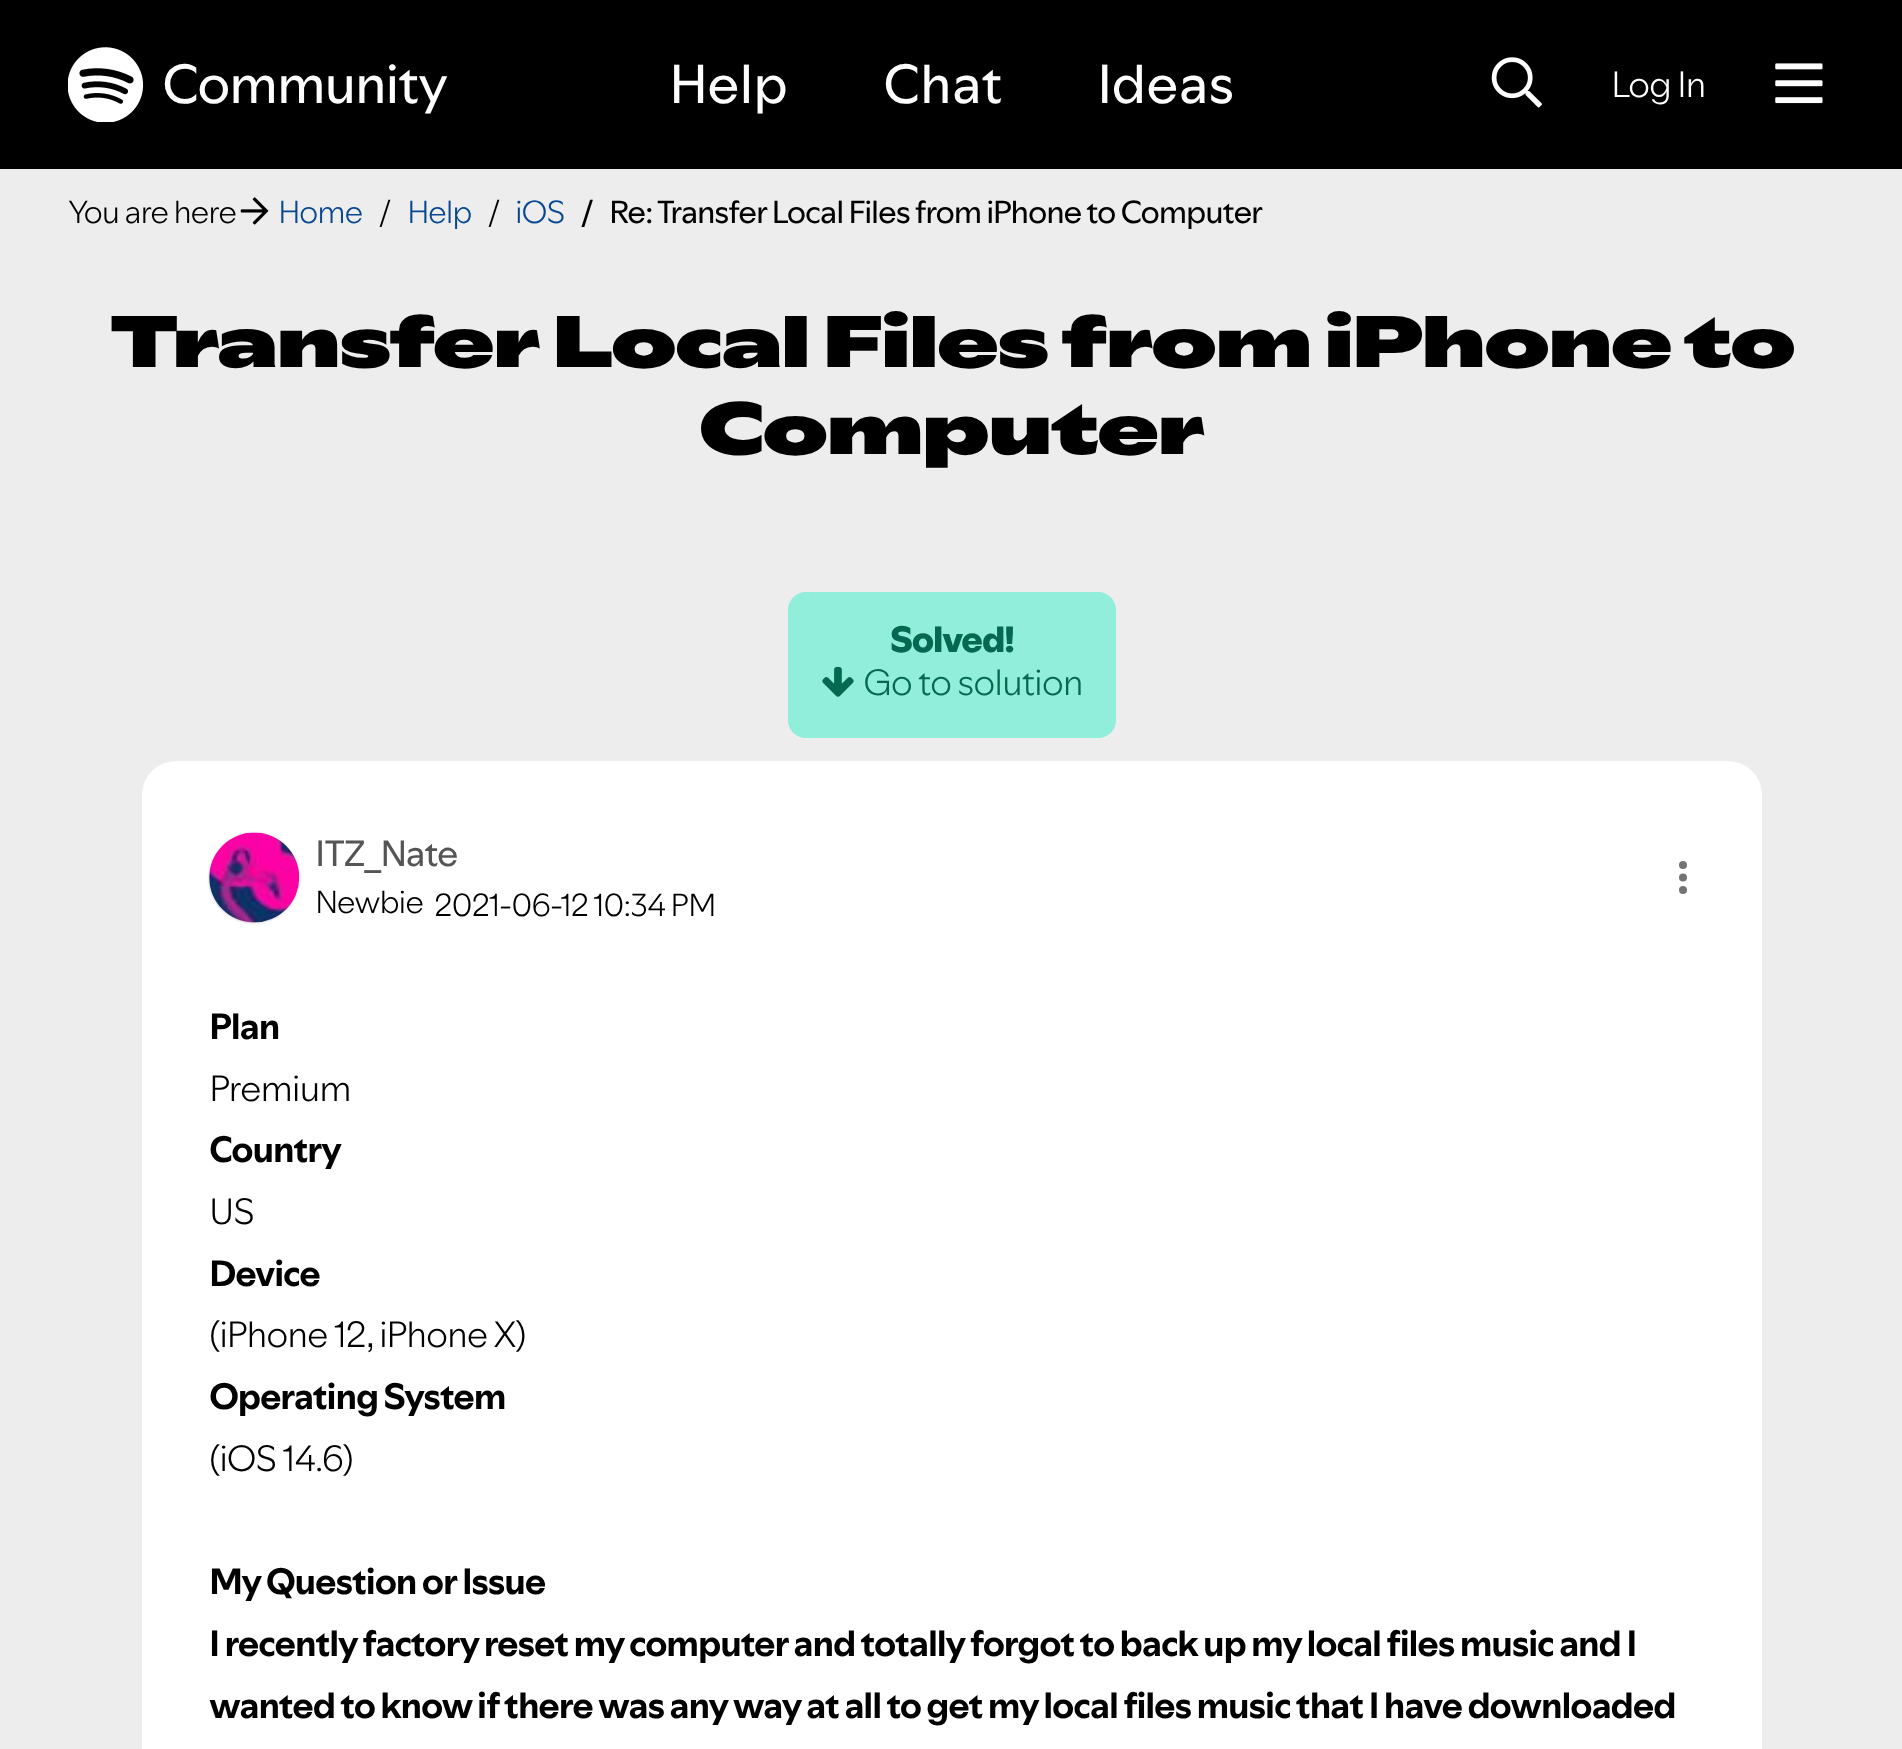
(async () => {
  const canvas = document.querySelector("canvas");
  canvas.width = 1902;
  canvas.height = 1749;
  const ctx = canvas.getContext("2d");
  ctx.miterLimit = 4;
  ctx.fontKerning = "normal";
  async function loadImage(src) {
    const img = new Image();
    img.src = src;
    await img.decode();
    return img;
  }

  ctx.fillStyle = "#ededed";
  ctx.fillRect(0, 0, 1902, 1749);
  ctx.fillStyle = "#000000";
  ctx.fillRect(0, 0, 1902, 169);
  ctx.drawImage(await loadImage("img/1.png"), 68, 47, 76, 75);
  ctx.drawImage(await loadImage("img/2.png"), 1491, 57, 51, 51);
  ctx.drawImage(await loadImage("img/3.png"), 1775, 63, 48, 41);
  ctx.drawImage(await loadImage("img/4.png"), 240, 197, 29, 28);
  ctx.fillStyle = "#91eeda";
  ctx.beginPath();
  ctx.roundRect(788, 592, 328, 146, 18);
  ctx.fill();
  ctx.drawImage(await loadImage("img/5.png"), 822, 666, 32, 31);
  ctx.fillStyle = "#ffffff";
  ctx.beginPath();
  ctx.roundRect(142, 761, 1620, 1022, 34);
  ctx.fill();
  ctx.fillStyle = "#c4c4c4";
  ctx.filter = "blur(1px)";
  ctx.beginPath();
  ctx.roundRect(209, 833, 90, 90, 45);
  ctx.fill();
  ctx.filter = "none";
  ctx.drawImage(await loadImage("img/6.png"), 209, 832, 91, 91);
  ctx.fillStyle = "#747474";
  ctx.beginPath();
  ctx.arc(1683, 865, 4, 0, Math.PI * 2);
  ctx.fill();
  ctx.beginPath();
  ctx.arc(1683, 877.5, 4, 0, Math.PI * 2);
  ctx.fill();
  ctx.beginPath();
  ctx.arc(1683, 890, 4, 0, Math.PI * 2);
  ctx.fill();
  ctx.letterSpacing = "-1.12px";
  ctx.font = "54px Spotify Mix";
  ctx.fillStyle = "#ffffff";
  ctx.fillText("Community", 162, 103);
  ctx.letterSpacing = "0px";
  for (const [text, x, y] of [
    ["Help", 669, 103],
    ["Chat", 883, 103],
    ["Ideas", 1097, 103],
  ]) {
    ctx.fillText(text, x, y);
  }
  ctx.letterSpacing = "-1.12px";
  ctx.font = "300 36px Spotify Mix";
  ctx.fillText("Log In", 1611, 97);
  ctx.font = "300 31.5px Spotify Mix";
  ctx.fillStyle = "#000000";
  ctx.fillText("You are here", 68, 223);
  ctx.fillStyle = "#084791";
  ctx.fillText("Home", 278, 223);
  ctx.fillStyle = "#000000";
  ctx.fillText("/", 379, 223);
  ctx.fillStyle = "#084791";
  ctx.fillText("Help", 407, 223);
  ctx.fillStyle = "#000000";
  ctx.fillText("/", 488, 223);
  ctx.fillStyle = "#084791";
  ctx.fillText("iOS", 515, 223);
  ctx.font = "31.5px Spotify Mix";
  ctx.fillStyle = "#000000";
  ctx.fillText("/", 581, 223);
  ctx.fillText("Re: Transfer Local Files from iPhone to Computer", 609, 223);
  ctx.font = "900 72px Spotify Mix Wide";
  ctx.fillText("Transfer Local Files from iPhone to", 110, 367);
  ctx.fillText("Computer", 699, 454);
  ctx.font = "800 36px Spotify Mix";
  ctx.fillStyle = "#056952";
  ctx.fillText("Solved!", 890, 652);
  ctx.font = "300 36px Spotify Mix";
  ctx.fillText("Go to solution", 863, 695);
  ctx.font = "36px Spotify Mix";
  ctx.fillStyle = "#555555";
  ctx.fillText("ITZ_Nate", 315, 866);
  ctx.font = "300 31.5px Spotify Mix";
  ctx.fillStyle = "#000000";
  for (const [text, x, y] of [
    ["Newbie", 315, 913],
    ["2021-06-12", 434, 916],
    ["10:34 PM", 593, 916],
  ]) {
    ctx.fillText(text, x, y);
  }
  ctx.font = "bold 36px Spotify Mix";
  ctx.fillText("Plan", 209, 1039);
  ctx.font = "300 36px Spotify Mix";
  ctx.fillText("Premium", 209, 1101);
  ctx.font = "bold 36px Spotify Mix";
  ctx.fillText("Country", 209, 1162);
  ctx.font = "300 36px Spotify Mix";
  ctx.fillText("US", 209, 1224);
  ctx.font = "bold 36px Spotify Mix";
  ctx.fillText("Device", 209, 1286);
  ctx.font = "300 36px Spotify Mix";
  ctx.fillText("(iPhone 12, iPhone X)", 209, 1347);
  ctx.font = "bold 36px Spotify Mix";
  ctx.fillText("Operating System", 209, 1409);
  ctx.font = "300 36px Spotify Mix";
  ctx.fillText("(iOS 14.6)", 209, 1471);
  ctx.font = "bold 36px Spotify Mix";
  for (const [text, x, y] of [
    ["My Question or Issue", 209, 1594],
    ["I recently factory reset my computer and totally forgot to back up my local files music and I", 209, 1656],
    ["wanted to know if there was any way at all to get my local files music that I have downloaded", 209, 1718],
  ]) {
    ctx.fillText(text, x, y);
  }
})();
